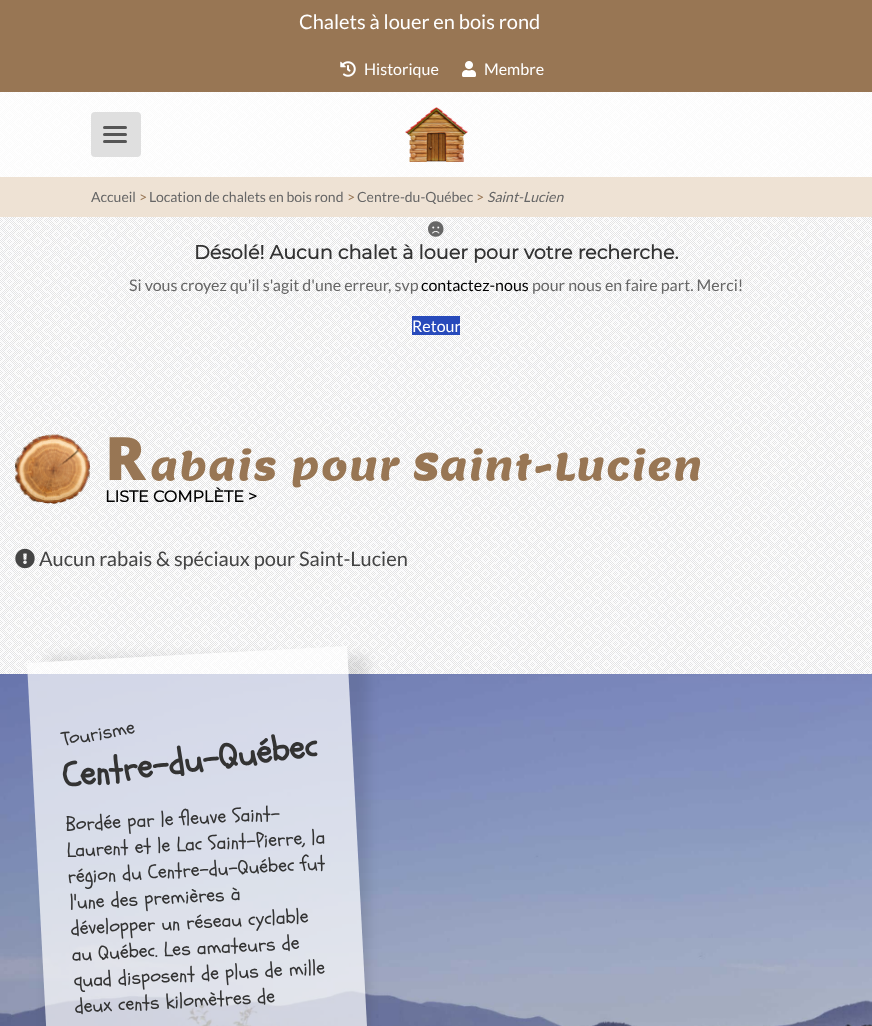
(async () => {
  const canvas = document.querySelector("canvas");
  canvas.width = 872;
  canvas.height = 1026;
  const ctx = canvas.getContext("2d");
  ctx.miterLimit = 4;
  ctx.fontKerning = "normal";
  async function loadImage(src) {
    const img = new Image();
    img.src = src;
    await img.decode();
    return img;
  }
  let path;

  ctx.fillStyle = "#ffffff";
  ctx.fillRect(0, 0, 872, 1026);
  ctx.drawImage(await loadImage("img/1.png"), 0, 92, 872, 582);
  ctx.fillStyle = "#987654";
  ctx.fillRect(0, 0, 872, 92);
  ctx.drawImage(await loadImage("img/2.png"), 340, 61, 16, 16);
  ctx.drawImage(await loadImage("img/3.png"), 462, 61, 14, 16);
  ctx.fillStyle = "rgba(255, 255, 255, 0.8)";
  ctx.fillRect(0, 92, 872, 85);
  ctx.fillStyle = "#dfdfdf";
  ctx.beginPath();
  ctx.roundRect(91, 112, 50, 45, 4);
  ctx.fill();
  ctx.fillStyle = "#555555";
  ctx.beginPath();
  ctx.roundRect(103, 140, 24, 3, 1.5);
  ctx.fill();
  ctx.beginPath();
  ctx.roundRect(103, 126, 24, 3, 1.5);
  ctx.fill();
  ctx.beginPath();
  ctx.roundRect(103, 133, 24, 3, 1.5);
  ctx.fill();
  ctx.drawImage(await loadImage("img/4.png"), 405, 107, 63, 55);
  ctx.fillStyle = "#eee2d4";
  ctx.fillRect(0, 177, 872, 40);
  ctx.drawImage(await loadImage("img/5.png"), 428, 221, 16, 16);
  ctx.fillStyle = "#274abb";
  ctx.fillRect(412, 316, 48, 19);
  ctx.drawImage(await loadImage("img/6.png"), 15, 434, 75, 70);
  ctx.drawImage(await loadImage("img/7.png"), 15, 548, 20, 21);
  ctx.drawImage(await loadImage("img/8.png"), 0, 674, 872, 352);
  ctx.save();
  path = new Path2D("M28 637H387V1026H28ZM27 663L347 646.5L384 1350.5L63.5 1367Z");
  ctx.clip(path, "evenodd");
  ctx.fillStyle = "rgba(0, 0, 0, 0.1)";
  ctx.filter = "blur(6px)";
  ctx.beginPath();
  ctx.rect(47, 656, 321, 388);
  ctx.fill();
  ctx.filter = "none";
  ctx.restore();
  ctx.fillStyle = "rgba(255, 255, 255, 0.7)";
  path = new Path2D("M27 663L347 646L384 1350L64 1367Z");
  ctx.fill(path);
  ctx.font = "20px Lato";
  ctx.fillStyle = "#ffffff";
  ctx.fillText("Chalets à louer en bois rond", 299, 29);
  ctx.font = "16px Lato";
  ctx.fillText("Historique", 364, 75);
  ctx.fillText("Membre", 484, 75);
  ctx.font = "14px Lato";
  ctx.fillStyle = "#666666";
  ctx.fillText("Accueil", 91, 202);
  ctx.fillStyle = "#987654";
  ctx.fillText(">", 139, 202);
  ctx.fillStyle = "#666666";
  ctx.fillText("Location de chalets en bois rond", 149, 202);
  ctx.fillStyle = "#987654";
  ctx.fillText(">", 347, 202);
  ctx.fillStyle = "#666666";
  ctx.fillText("Centre-du-Québec", 357, 202);
  ctx.fillStyle = "#987654";
  ctx.fillText(">", 476, 202);
  ctx.font = "italic 14px Lato";
  ctx.fillStyle = "#666666";
  ctx.fillText("Saint-Lucien", 487, 202);
  ctx.font = "bold 19.2px Montserrat";
  ctx.fillStyle = "#333333";
  ctx.fillText("Désolé! Aucun chalet à louer pour votre recherche.", 194, 259);
  ctx.font = "16px Lato";
  ctx.fillStyle = "#666666";
  ctx.fillText("Si vous croyez qu'il s'agit d'une erreur, svp", 129, 291);
  ctx.fillStyle = "#000000";
  ctx.fillText("contactez-nous", 421, 291);
  ctx.fillStyle = "#666666";
  ctx.fillText("pour nous en faire part. Merci!", 532, 291);
  ctx.fillStyle = "#ffffff";
  ctx.fillText("Retour", 412, 332);
  ctx.letterSpacing = "1px";
  ctx.font = "900 60px Noto Sans";
  ctx.fillStyle = "#987654";
  ctx.fillText("R", 105, 480);
  ctx.font = "38px Lemon";
  ctx.fillText("abais pour Saint-Lucien", 150, 480);
  ctx.letterSpacing = "0px";
  ctx.font = "bold 16px Montserrat";
  ctx.fillStyle = "#000000";
  ctx.fillText("LISTE COMPLÈTE >", 105, 502);
  ctx.font = "20px Lato";
  ctx.fillStyle = "#444444";
  ctx.fillText("Aucun rabais & spéciaux pour Saint-Lucien", 39, 566);
  ctx.font = "20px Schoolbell";
  ctx.fillStyle = "#333333";
  ctx.save();
  ctx.translate(63, 746);
  ctx.rotate(-10 * Math.PI / 180);
  ctx.fillText("Tourisme", 0, 0);
  ctx.restore();
  ctx.font = "bold 35px Schoolbell";
  ctx.save();
  ctx.translate(64, 788);
  ctx.rotate(-7 * Math.PI / 180);
  ctx.fillText("Centre-du-Québec", 0, 0);
  ctx.restore();
  ctx.font = "20px Schoolbell";
  ctx.save();
  ctx.translate(66, 831);
  ctx.rotate(-3 * Math.PI / 180);
  ctx.fillText("Bordée par le fleuve Saint-", 0, 0);
  ctx.restore();
  ctx.save();
  ctx.translate(67, 857);
  ctx.rotate(-3 * Math.PI / 180);
  ctx.fillText("Laurent et le Lac Saint-Pierre, la", 0, 0);
  ctx.restore();
  ctx.save();
  ctx.translate(68, 883);
  ctx.rotate(-3 * Math.PI / 180);
  ctx.fillText("région du Centre-du-Québec fut", 0, 0);
  ctx.restore();
  ctx.save();
  ctx.translate(70, 909);
  ctx.rotate(-3 * Math.PI / 180);
  ctx.fillText("l'une des premières à", 0, 0);
  ctx.restore();
  ctx.save();
  ctx.translate(71, 935);
  ctx.rotate(-3 * Math.PI / 180);
  ctx.fillText("développer un réseau cyclable", 0, 0);
  ctx.restore();
  ctx.save();
  ctx.translate(72, 961);
  ctx.rotate(-3 * Math.PI / 180);
  ctx.fillText("au Québec. Les amateurs de", 0, 0);
  ctx.restore();
  ctx.save();
  ctx.translate(74, 987);
  ctx.rotate(-3 * Math.PI / 180);
  ctx.fillText("quad disposent de plus de mille", 0, 0);
  ctx.restore();
  ctx.save();
  ctx.translate(75, 1013);
  ctx.rotate(-3 * Math.PI / 180);
  ctx.fillText("deux cents kilomètres de", 0, 0);
  ctx.restore();
})();
